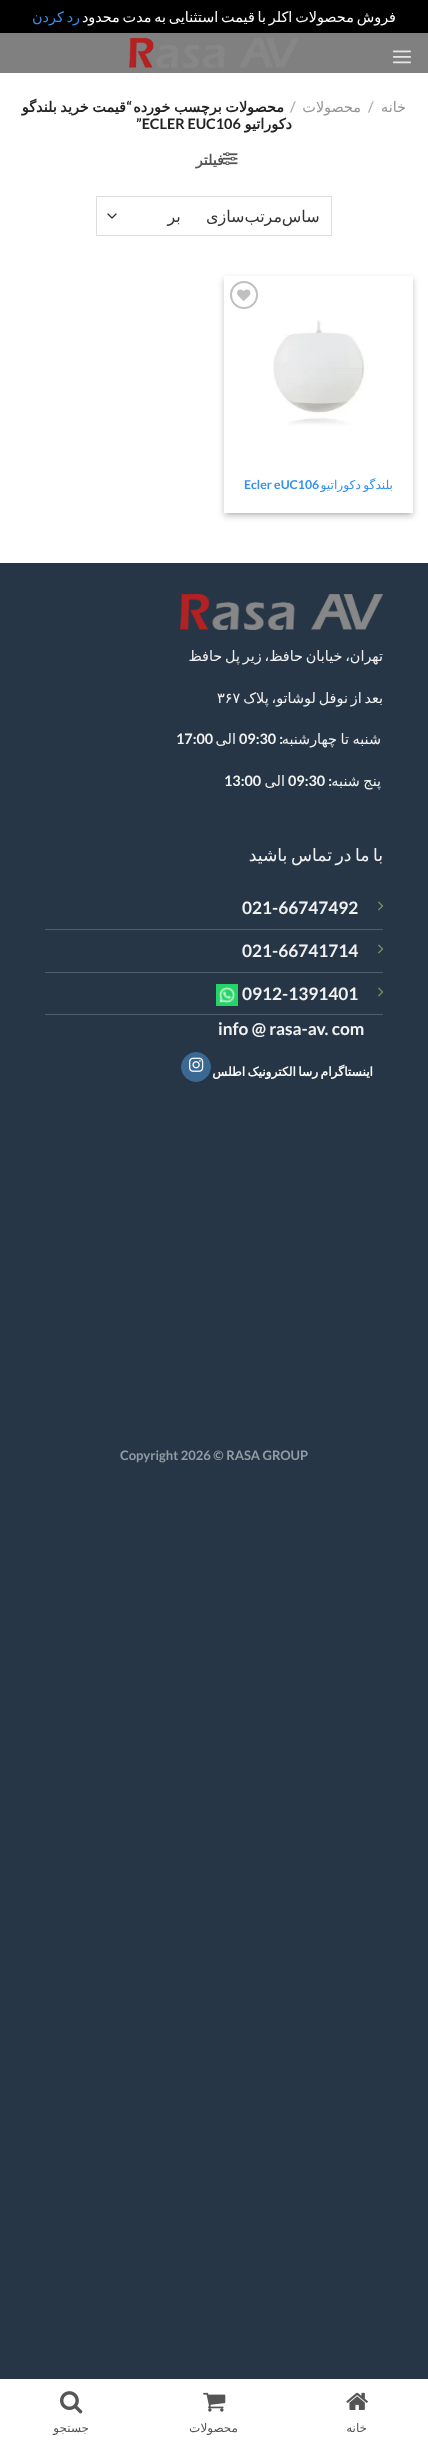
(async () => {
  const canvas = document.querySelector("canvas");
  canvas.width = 428;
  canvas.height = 2447;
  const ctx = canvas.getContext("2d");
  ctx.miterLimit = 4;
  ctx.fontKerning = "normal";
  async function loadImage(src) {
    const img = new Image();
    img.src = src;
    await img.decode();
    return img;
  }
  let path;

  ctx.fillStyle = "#273647";
  ctx.fillRect(0, 0, 428, 2447);
  for (const [x, y, w, h, color] of [
    [0, 0, 428, 33, "#000000"],
    [0, 73, 428, 490, "#ffffff"],
    [0, 33, 428, 40, "#808080"],
  ]) {
    ctx.fillStyle = color;
    ctx.fillRect(x, y, w, h);
  }
  ctx.drawImage(await loadImage("img/1.png"), 392, 50, 19, 14);
  ctx.drawImage(await loadImage("img/2.png"), 129, 38, 169, 30);
  ctx.drawImage(await loadImage("img/3.png"), 223, 152, 15, 13);
  path = new Path2D("M108 214L112 218L116 214");
  ctx.strokeStyle = "#333333";
  ctx.lineWidth = 1.3;
  ctx.lineCap = "round";
  ctx.lineJoin = "round";
  ctx.stroke(path);
  ctx.strokeStyle = "#dddddd";
  ctx.lineWidth = 1;
  ctx.lineJoin = "miter";
  ctx.strokeRect(96.5, 196.5, 235, 39);
  ctx.save();
  path = new Path2D("M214 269H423V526H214ZM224 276H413V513H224Z");
  ctx.clip(path, "evenodd");
  ctx.fillStyle = "rgba(0, 0, 0, 0.23)";
  ctx.filter = "blur(3px)";
  ctx.beginPath();
  ctx.rect(224, 279, 189, 237);
  ctx.fill();
  ctx.filter = "none";
  ctx.restore();
  ctx.save();
  ctx.beginPath();
  ctx.rect(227, 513, 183, 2);
  ctx.clip();
  ctx.fillStyle = "rgba(0, 0, 0, 0.16)";
  ctx.filter = "blur(3px)";
  ctx.beginPath();
  ctx.rect(228, 283, 181, 229);
  ctx.fill();
  ctx.filter = "none";
  ctx.restore();
  ctx.beginPath();
  ctx.arc(244, 295, 13, 0, Math.PI * 2);
  ctx.strokeStyle = "#c0c0c0";
  ctx.lineWidth = 2;
  ctx.stroke();
  ctx.drawImage(await loadImage("img/4.png"), 237, 289, 14, 12);
  ctx.drawImage(await loadImage("img/5.png"), 273, 319, 92, 107);
  ctx.fillStyle = "#253343";
  ctx.fillRect(0, 563, 428, 1);
  ctx.drawImage(await loadImage("img/6.png"), 180, 594, 203, 36);
  ctx.fillStyle = "#525e6c";
  ctx.fillRect(45, 929, 338, 1);
  ctx.drawImage(await loadImage("img/7.png"), 378, 901, 6, 10);
  ctx.fillRect(45, 972, 338, 1);
  ctx.drawImage(await loadImage("img/7.png"), 378, 944, 6, 10);
  ctx.fillRect(45, 1014, 338, 1);
  ctx.drawImage(await loadImage("img/7.png"), 378, 987, 6, 10);
  ctx.drawImage(await loadImage("img/8.png"), 216, 984, 22, 22);
  ctx.fillStyle = "#3b6994";
  ctx.beginPath();
  ctx.arc(196, 1067, 14.5, 0, Math.PI * 2);
  ctx.fill();
  ctx.strokeStyle = "#3b6994";
  ctx.lineWidth = 1;
  ctx.stroke();
  ctx.drawImage(await loadImage("img/9.png"), 189, 1057, 15, 15);
  ctx.fillStyle = "#ffffff";
  ctx.fillRect(0, 2379, 428, 68);
  ctx.drawImage(await loadImage("img/10.png"), 346, 2392, 22, 18);
  ctx.drawImage(await loadImage("img/11.png"), 203, 2392, 23, 20);
  ctx.drawImage(await loadImage("img/12.png"), 60, 2391, 23, 23);
  ctx.wordSpacing = "-1.75px";
  ctx.direction = "rtl";
  ctx.font = "14.4px DejaVu Sans";
  ctx.fillText("فروش محصولات اکلر با قیمت استثنایی به مدت محدود", 396, 22);
  ctx.fillStyle = "#3491ee";
  ctx.fillText("رد کردن", 80, 22);
  ctx.wordSpacing = "0px";
  ctx.fillStyle = "#949494";
  ctx.fillText("خانه", 406, 112);
  ctx.direction = "ltr";
  ctx.font = "bold 14.4px Lato";
  ctx.fillStyle = "#b2b2b2";
  ctx.fillText("/", 368, 112);
  ctx.direction = "rtl";
  ctx.font = "14.4px DejaVu Sans";
  ctx.fillStyle = "#949494";
  ctx.fillText("محصولات", 361, 112);
  ctx.direction = "ltr";
  ctx.font = "bold 14.4px Lato";
  ctx.fillStyle = "#b2b2b2";
  ctx.fillText("/", 290, 112);
  ctx.wordSpacing = "-1px";
  ctx.direction = "rtl";
  ctx.font = "bold 14.4px DejaVu Sans";
  ctx.fillStyle = "#222222";
  ctx.fillText("محصولات برچسب خورده", 284, 112);
  ctx.fillText("قیمت خرید بلندگو", 126, 112);
  ctx.wordSpacing = "0px";
  ctx.font = "bold 14.4px Lato";
  ctx.fillText("“", 132, 112);
  ctx.font = "bold 14.4px DejaVu Sans";
  ctx.fillText("دکوراتیو", 292, 129);
  ctx.direction = "ltr";
  ctx.font = "bold 14.4px Lato";
  ctx.fillText("”ECLER EUC106", 136, 129);
  ctx.letterSpacing = "0.75px";
  ctx.direction = "rtl";
  ctx.font = "bold 14.4px DejaVu Sans";
  ctx.fillStyle = "#555555";
  ctx.fillText("فیلتر", 224, 165);
  ctx.save();
  ctx.beginPath();
  ctx.rect(119, 203, 200, 26);
  ctx.clip();
  ctx.letterSpacing = "0px";
  ctx.font = "16px DejaVu Sans";
  ctx.fillStyle = "#333333";
  ctx.fillText("اساس", 324, 222);
  ctx.restore();
  ctx.letterSpacing = "0px";
  ctx.wordSpacing = "20px";
  ctx.font = "16px DejaVu Sans";
  ctx.fillStyle = "#333333";
  ctx.fillText("مرتب‌سازی بر", 282, 222);
  ctx.wordSpacing = "-1.5px";
  ctx.font = "12.25px DejaVu Sans";
  ctx.fillStyle = "#3491ee";
  ctx.fillText("بلندگو دکوراتیو", 393, 489);
  ctx.wordSpacing = "0px";
  ctx.direction = "ltr";
  ctx.font = "bold 12.25px Lato";
  ctx.fillText("Ecler eUC106", 244, 489);
  ctx.wordSpacing = "-1.75px";
  ctx.direction = "rtl";
  ctx.font = "14.4px DejaVu Sans";
  ctx.fillStyle = "#f1f1f1";
  ctx.fillText("تهران، خیابان حافظ، زیر پل حافظ", 383, 661);
  ctx.fillText("بعد از نوفل لوشاتو، پلاک", 383, 703);
  ctx.wordSpacing = "0px";
  ctx.direction = "ltr";
  ctx.fillText("۳۶۷", 217, 703);
  ctx.wordSpacing = "-1px";
  ctx.direction = "rtl";
  ctx.fillText("شنبه تا چهارشنبه", 381, 744);
  ctx.wordSpacing = "0px";
  ctx.font = "bold 14.4px Lato";
  ctx.fillText(":", 283, 744);
  ctx.direction = "ltr";
  ctx.fillText("09:30", 239, 744);
  ctx.direction = "rtl";
  ctx.font = "14.4px DejaVu Sans";
  ctx.fillText("الی", 236, 744);
  ctx.direction = "ltr";
  ctx.font = "bold 14.4px Lato";
  ctx.fillText("17:00", 176, 744);
  ctx.wordSpacing = "-1px";
  ctx.direction = "rtl";
  ctx.font = "14.4px DejaVu Sans";
  ctx.fillText("پنج شنبه", 381, 786);
  ctx.wordSpacing = "0px";
  ctx.font = "bold 14.4px Lato";
  ctx.fillText(":", 332, 786);
  ctx.direction = "ltr";
  ctx.fillText("09:30", 288, 786);
  ctx.direction = "rtl";
  ctx.font = "14.4px DejaVu Sans";
  ctx.fillText("الی", 285, 786);
  ctx.direction = "ltr";
  ctx.font = "bold 14.4px Lato";
  ctx.fillText("13:00", 224, 786);
  ctx.wordSpacing = "-2px";
  ctx.direction = "rtl";
  ctx.font = "17.25px DejaVu Sans";
  ctx.fillText("با ما در تماس باشید", 383, 861);
  ctx.wordSpacing = "0px";
  ctx.direction = "ltr";
  ctx.font = "bold 17.25px Lato";
  for (const [text, x, y] of [
    ["021-66747492", 242, 914],
    ["021-66741714", 242, 957],
    ["0912-1391401", 242, 1000],
    ["info @ rasa-av. com", 218, 1035],
  ]) {
    ctx.fillText(text, x, y);
  }
  ctx.wordSpacing = "-1.5px";
  ctx.direction = "rtl";
  ctx.font = "bold 12.25px DejaVu Sans";
  ctx.fillStyle = "#ffffff";
  ctx.fillText("اینستاگرام رسا الکترونیک اطلس", 373, 1076);
  ctx.wordSpacing = "0px";
  ctx.direction = "ltr";
  ctx.font = "bold 13px Lato";
  ctx.fillStyle = "#939ba3";
  ctx.fillText("Copyright 2026 © RASA GROUP", 120, 1460);
  ctx.direction = "rtl";
  ctx.font = "12px DejaVu Sans";
  ctx.fillStyle = "#555555";
  for (const [text, x, y] of [
    ["خانه", 367, 2432],
    ["محصولات", 238, 2432],
    ["جستجو", 89, 2432],
  ]) {
    ctx.fillText(text, x, y);
  }
})();
